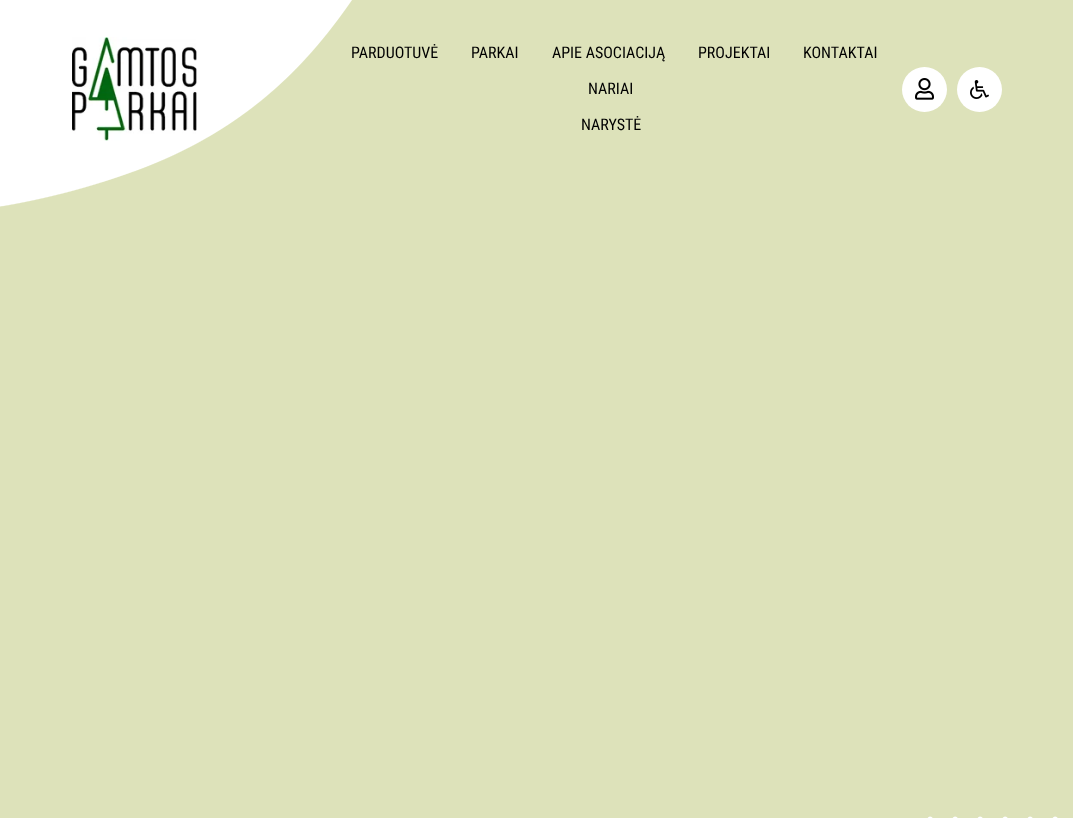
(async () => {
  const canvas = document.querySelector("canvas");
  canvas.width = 1073;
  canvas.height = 818;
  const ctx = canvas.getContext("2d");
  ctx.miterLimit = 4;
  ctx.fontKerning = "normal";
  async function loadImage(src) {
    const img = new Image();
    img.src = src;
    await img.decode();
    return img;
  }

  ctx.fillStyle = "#dde2ba";
  ctx.fillRect(0, 0, 1073, 818);
  ctx.drawImage(await loadImage("img/1.png"), 0, 0, 352, 207);
  ctx.drawImage(await loadImage("img/2.png"), 72, 37, 125, 104);
  ctx.fillStyle = "#ffffff";
  ctx.beginPath();
  ctx.arc(924.5, 89.5, 22.5, 0, Math.PI * 2);
  ctx.fill();
  ctx.drawImage(await loadImage("img/3.png"), 915, 78, 19, 22);
  ctx.beginPath();
  ctx.arc(979.5, 89.5, 22.5, 0, Math.PI * 2);
  ctx.fill();
  ctx.drawImage(await loadImage("img/4.png"), 970, 80, 19, 19);
  ctx.drawImage(await loadImage("img/5.png"), 927, 816, 131, 2);
  ctx.font = "16px Roboto Condensed";
  ctx.fillStyle = "#000000";
  for (const [text, x, y] of [
    ["PARDUOTUVĖ", 351, 58],
    ["PARKAI", 471, 58],
    ["APIE ASOCIACIJĄ", 552, 58],
    ["NARIAI", 588, 94],
    ["NARYSTĖ", 581, 130],
    ["PROJEKTAI", 698, 58],
    ["KONTAKTAI", 803, 58],
  ]) {
    ctx.fillText(text, x, y);
  }
})();
